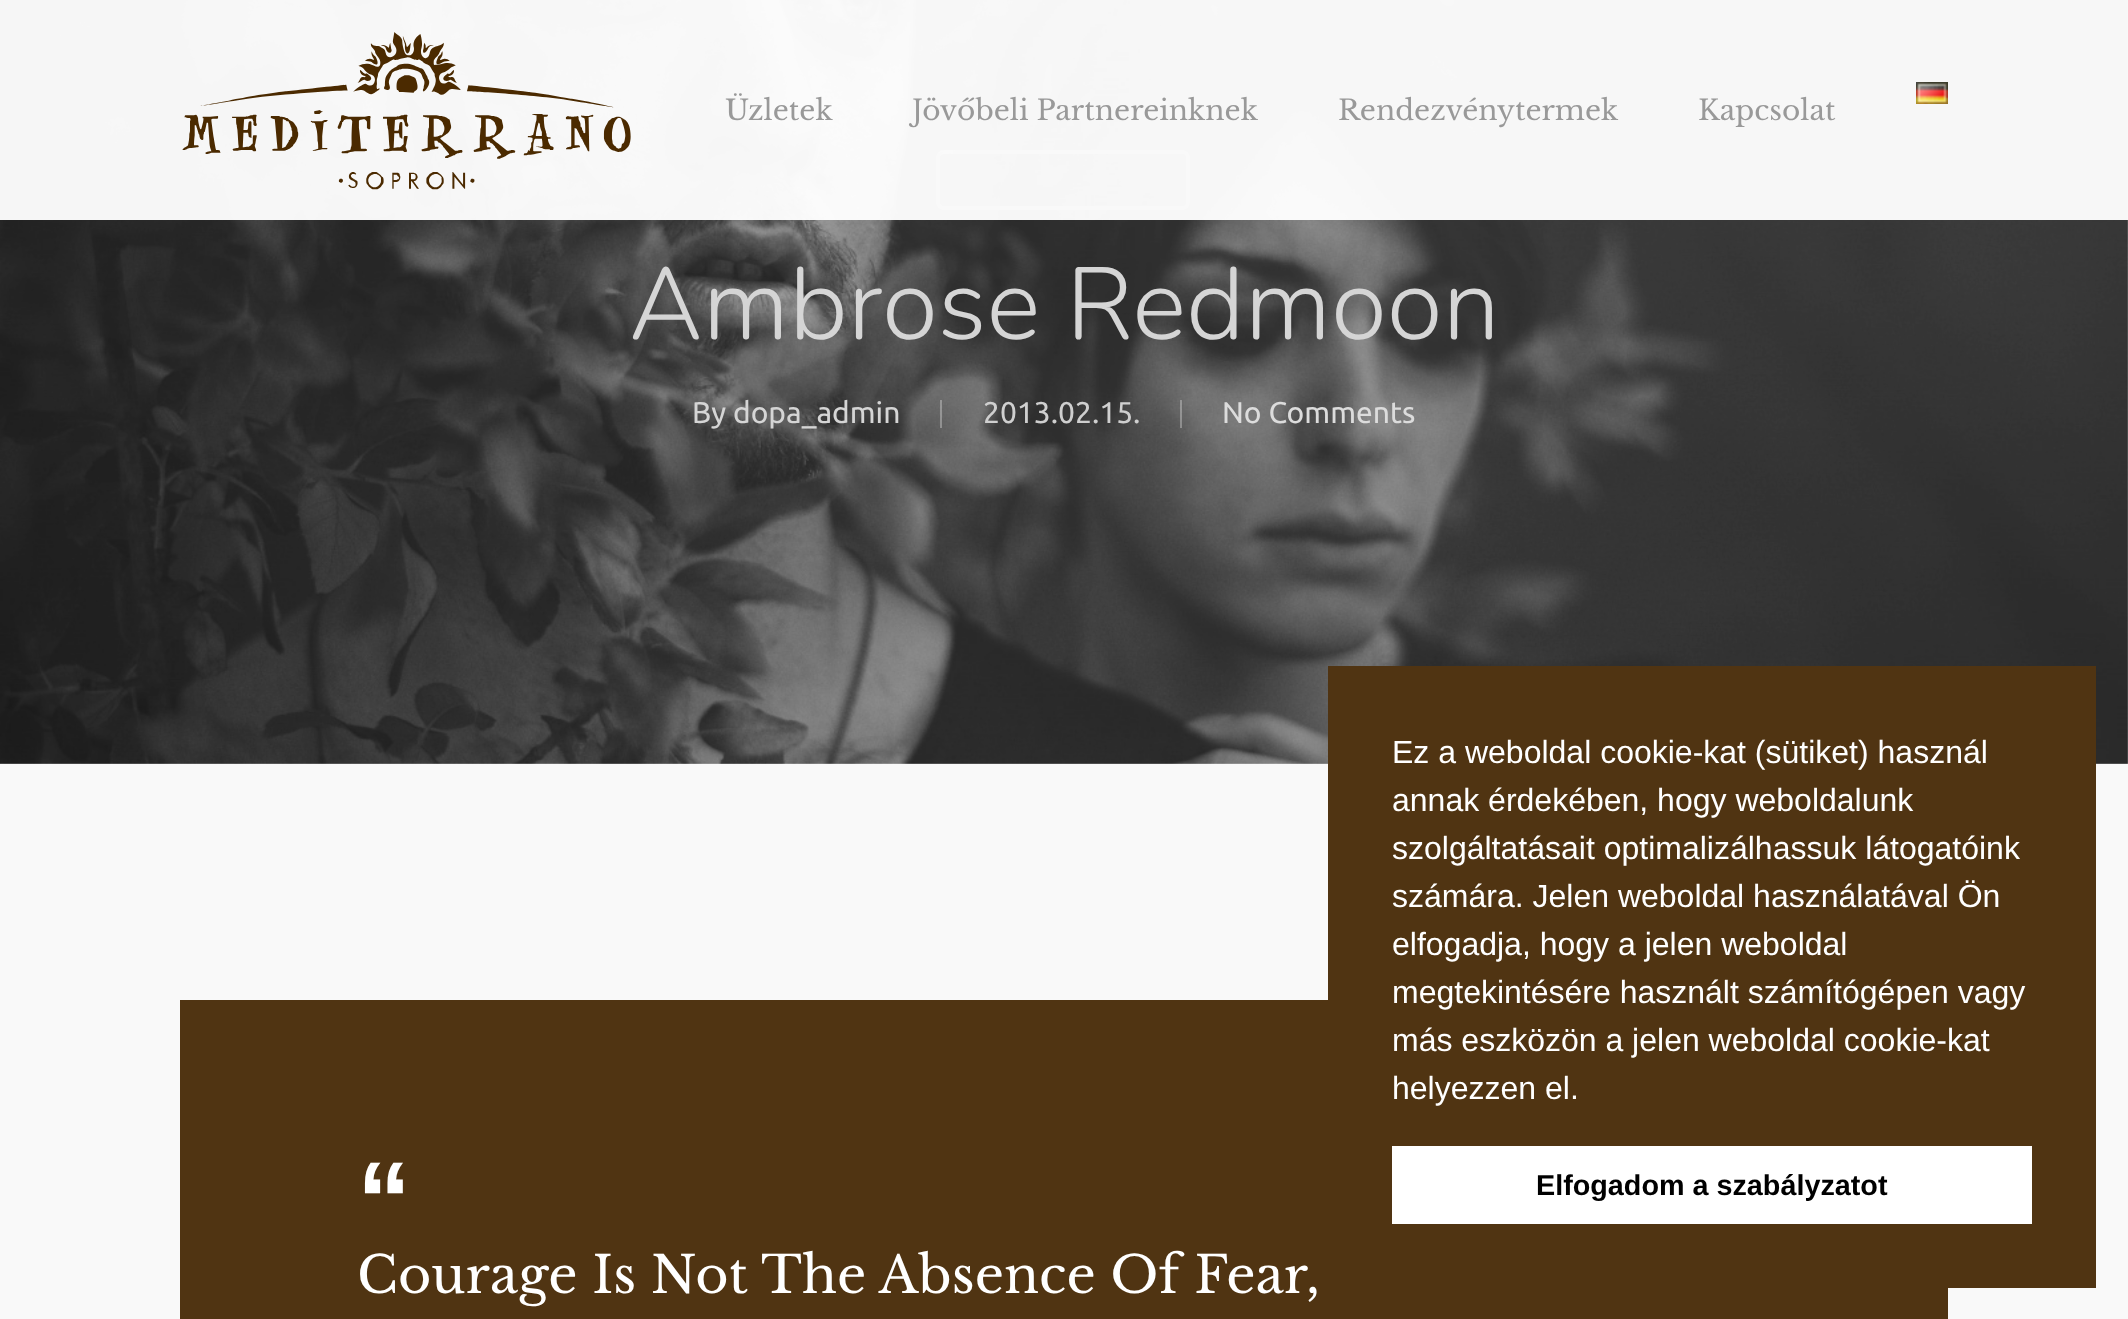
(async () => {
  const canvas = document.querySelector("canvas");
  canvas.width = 2128;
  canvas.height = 1319;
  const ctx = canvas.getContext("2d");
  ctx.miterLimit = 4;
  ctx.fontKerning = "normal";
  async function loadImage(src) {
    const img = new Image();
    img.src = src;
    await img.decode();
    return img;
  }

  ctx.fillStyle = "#f9f9f9";
  ctx.fillRect(0, 0, 2128, 1319);
  ctx.drawImage(await loadImage("img/3.png"), 0, 0, 2128, 764);
  ctx.beginPath();
  ctx.roundRect(938, 152, 250, 56, 6);
  ctx.strokeStyle = "rgba(255, 255, 255, 0.3)";
  ctx.lineWidth = 4;
  ctx.stroke();
  ctx.fillStyle = "rgba(255, 255, 255, 0.96)";
  ctx.fillRect(0, 0, 2128, 220);
  ctx.drawImage(await loadImage("img/1.png"), 182, 32, 449, 158);
  ctx.drawImage(await loadImage("img/2.png"), 1916, 82, 32, 22);
  for (const [x, y, w, h, color] of [
    [940, 400, 2, 28, "rgba(255, 255, 255, 0.3)"],
    [1180, 400, 2, 28, "rgba(255, 255, 255, 0.3)"],
    [180, 1000, 1768, 319, "#503412"],
    [1328, 666, 768, 622, "#503412"],
    [1392, 1146, 640, 78, "#ffffff"],
  ]) {
    ctx.fillStyle = color;
    ctx.fillRect(x, y, w, h);
  }
  ctx.font = "28px Libre Baskerville";
  ctx.fillStyle = "#999999";
  for (const [text, x, y] of [
    ["Üzletek", 725, 120],
    ["Jövőbeli Partnereinknek", 912, 120],
    ["Rendezvénytermek", 1338, 120],
    ["Kapcsolat", 1698, 120],
  ]) {
    ctx.fillText(text, x, y);
  }
  ctx.font = "300 102px Nunito";
  ctx.fillStyle = "#d5d5d5";
  ctx.fillText("Ambrose Redmoon", 629, 339);
  ctx.font = "30px Ubuntu";
  ctx.fillText("By", 692, 423);
  ctx.fillText("dopa_admin", 733, 423);
  ctx.fillStyle = "#cfcfcf";
  ctx.fillText("2013.02.15.", 983, 423);
  ctx.fillStyle = "#dcdcdc";
  ctx.fillText("No Comments", 1222, 423);
  ctx.font = "bold 108px Liberation Sans";
  ctx.fillStyle = "#ffffff";
  ctx.fillText("“", 357, 1237);
  ctx.font = "51px Libre Baskerville";
  ctx.fillText("Courage Is Not The Absence Of Fear,", 357, 1293);
  ctx.font = "32px Liberation Sans";
  for (const [text, x, y] of [
    ["Ez a weboldal cookie-kat (sütiket) használ", 1392, 763],
    ["annak érdekében, hogy weboldalunk", 1392, 811],
    ["szolgáltatásait optimalizálhassuk látogatóink", 1392, 859],
    ["számára. Jelen weboldal használatával Ön", 1392, 907],
    ["elfogadja, hogy a jelen weboldal", 1392, 955],
    ["megtekintésére használt számítógépen vagy", 1392, 1003],
    ["más eszközön a jelen weboldal cookie-kat", 1392, 1051],
    ["helyezzen el.", 1392, 1099],
  ]) {
    ctx.fillText(text, x, y);
  }
  ctx.font = "bold 28.75px Liberation Sans";
  ctx.fillStyle = "#000000";
  ctx.fillText("Elfogadom a szabályzatot", 1536, 1195);
})();
